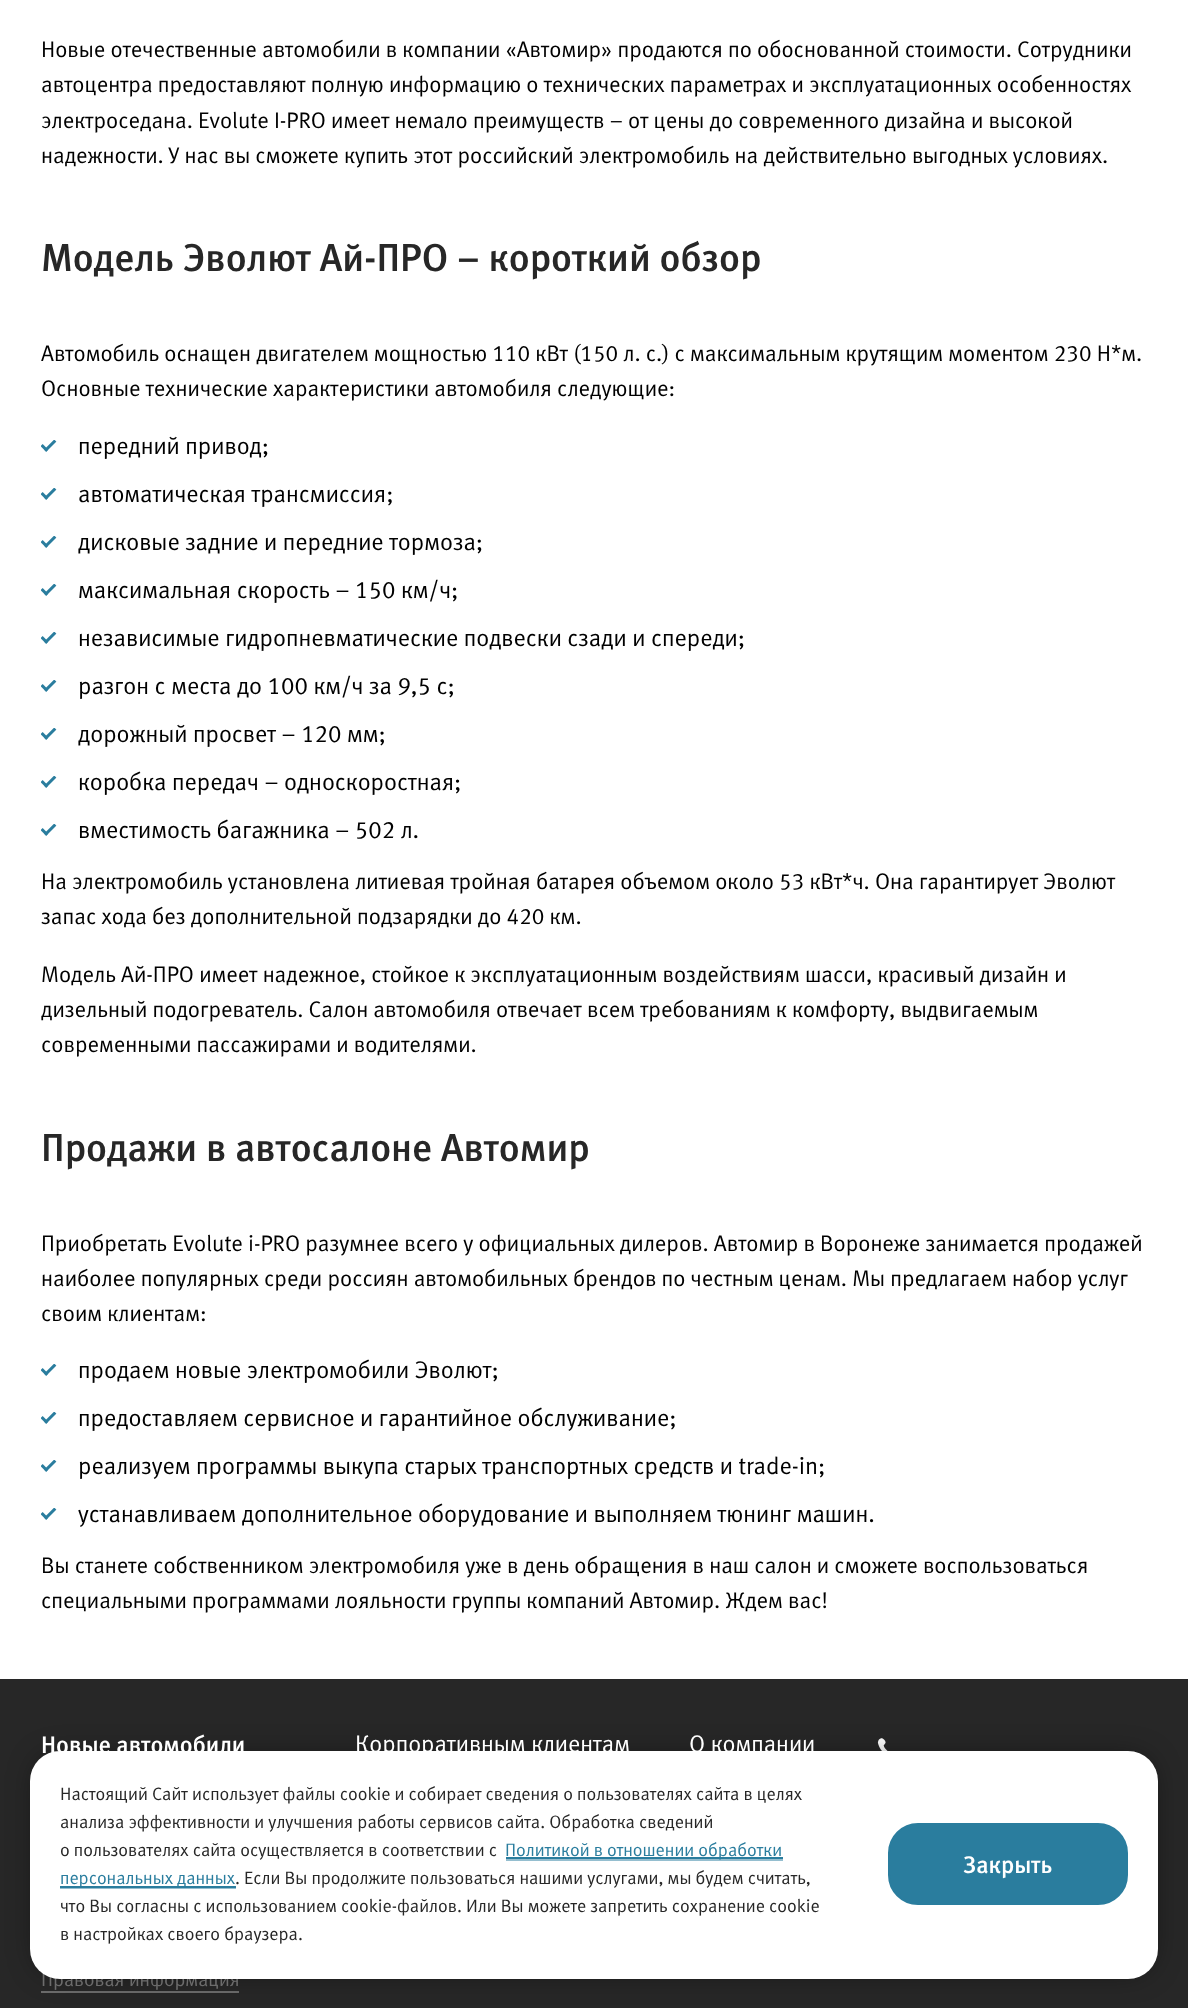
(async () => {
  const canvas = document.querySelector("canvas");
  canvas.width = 1188;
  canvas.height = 2008;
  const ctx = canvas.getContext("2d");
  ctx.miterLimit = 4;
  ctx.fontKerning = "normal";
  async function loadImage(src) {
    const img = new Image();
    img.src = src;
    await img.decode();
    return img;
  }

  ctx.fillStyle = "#272727";
  ctx.fillRect(0, 0, 1188, 2008);
  ctx.fillStyle = "#ffffff";
  ctx.fillRect(0, 0, 1188, 1679);
  ctx.drawImage(await loadImage("img/1.png"), 41, 440, 16, 12);
  ctx.drawImage(await loadImage("img/1.png"), 41, 488, 16, 12);
  ctx.drawImage(await loadImage("img/1.png"), 41, 536, 16, 12);
  ctx.drawImage(await loadImage("img/1.png"), 41, 584, 16, 12);
  ctx.drawImage(await loadImage("img/1.png"), 41, 632, 16, 12);
  ctx.drawImage(await loadImage("img/1.png"), 41, 680, 16, 12);
  ctx.drawImage(await loadImage("img/1.png"), 41, 728, 16, 12);
  ctx.drawImage(await loadImage("img/1.png"), 41, 776, 16, 12);
  ctx.drawImage(await loadImage("img/1.png"), 41, 824, 16, 12);
  ctx.drawImage(await loadImage("img/1.png"), 41, 1364, 16, 12);
  ctx.drawImage(await loadImage("img/1.png"), 41, 1412, 16, 12);
  ctx.drawImage(await loadImage("img/1.png"), 41, 1460, 16, 12);
  ctx.drawImage(await loadImage("img/1.png"), 41, 1508, 16, 12);
  ctx.drawImage(await loadImage("img/2.png"), 877, 1738, 11, 13);
  ctx.fillStyle = "#6c6c6c";
  ctx.fillRect(41, 1991, 198, 2);
  ctx.fillStyle = "rgba(0, 0, 0, 0.5)";
  ctx.filter = "blur(15px)";
  ctx.beginPath();
  ctx.roundRect(38, 1758, 1113, 213, 23);
  ctx.fill();
  ctx.filter = "none";
  ctx.font = "22.5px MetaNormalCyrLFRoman";
  ctx.fillStyle = "#000000";
  for (const [text, x, y] of [
    ["Новые отечественные автомобили в компании «Автомир» продаются по обоснованной стоимости. Сотрудники", 41, 57],
    ["автоцентра предоставляют полную информацию о технических параметрах и эксплуатационных особенностях", 41, 92],
    ["электроседана. Evolute I-PRO имеет немало преимуществ – от цены до современного дизайна и высокой", 41, 128],
    ["надежности. У нас вы сможете купить этот российский электромобиль на действительно выгодных условиях.", 41, 163],
  ]) {
    ctx.fillText(text, x, y);
  }
  ctx.font = "500 39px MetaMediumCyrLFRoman";
  ctx.fillStyle = "#272727";
  ctx.fillText("Модель Эволют Ай-ПРО – короткий обзор", 41, 271);
  ctx.font = "22.5px MetaNormalCyrLFRoman";
  ctx.fillStyle = "#000000";
  ctx.fillText("Автомобиль оснащен двигателем мощностью 110 кВт (150 л. с.) с максимальным крутящим моментом 230 Н*м.", 41, 361);
  ctx.fillText("Основные технические характеристики автомобиля следующие:", 41, 396);
  ctx.font = "24px MetaNormalCyrLFRoman";
  for (const [text, x, y] of [
    ["передний привод;", 78, 454],
    ["автоматическая трансмиссия;", 78, 502],
    ["дисковые задние и передние тормоза;", 78, 550],
    ["максимальная скорость – 150 км/ч;", 78, 598],
    ["независимые гидропневматические подвески сзади и спереди;", 78, 646],
    ["разгон с места до 100 км/ч за 9,5 с;", 78, 694],
    ["дорожный просвет – 120 мм;", 78, 742],
    ["коробка передач – односкоростная;", 78, 790],
    ["вместимость багажника – 502 л.", 78, 838],
  ]) {
    ctx.fillText(text, x, y);
  }
  ctx.font = "22.5px MetaNormalCyrLFRoman";
  for (const [text, x, y] of [
    ["На электромобиль установлена литиевая тройная батарея объемом около 53 кВт*ч. Она гарантирует Эволют", 41, 889],
    ["запас хода без дополнительной подзарядки до 420 км.", 41, 924],
    ["Модель Ай-ПРО имеет надежное, стойкое к эксплуатационным воздействиям шасси, красивый дизайн и", 41, 982],
    ["дизельный подогреватель. Салон автомобиля отвечает всем требованиям к комфорту, выдвигаемым", 41, 1017],
    ["современными пассажирами и водителями.", 41, 1052],
  ]) {
    ctx.fillText(text, x, y);
  }
  ctx.font = "500 39px MetaMediumCyrLFRoman";
  ctx.fillStyle = "#272727";
  ctx.fillText("Продажи в автосалоне Автомир", 41, 1161);
  ctx.font = "22.5px MetaNormalCyrLFRoman";
  ctx.fillStyle = "#000000";
  for (const [text, x, y] of [
    ["Приобретать Evolute i-PRO разумнее всего у официальных дилеров. Автомир в Воронеже занимается продажей", 41, 1251],
    ["наиболее популярных среди россиян автомобильных брендов по честным ценам. Мы предлагаем набор услуг", 41, 1286],
    ["своим клиентам:", 41, 1321],
  ]) {
    ctx.fillText(text, x, y);
  }
  ctx.font = "24px MetaNormalCyrLFRoman";
  for (const [text, x, y] of [
    ["продаем новые электромобили Эволют;", 78, 1378],
    ["предоставляем сервисное и гарантийное обслуживание;", 78, 1426],
    ["реализуем программы выкупа старых транспортных средств и trade-in;", 78, 1474],
    ["устанавливаем дополнительное оборудование и выполняем тюнинг машин.", 78, 1522],
  ]) {
    ctx.fillText(text, x, y);
  }
  ctx.font = "22.5px MetaNormalCyrLFRoman";
  ctx.fillText("Вы станете собственником электромобиля уже в день обращения в наш салон и сможете воспользоваться", 41, 1573);
  ctx.fillText("специальными программами лояльности группы компаний Автомир. Ждем вас!", 41, 1608);
  ctx.font = "500 24px MetaMediumCyrLFRoman";
  ctx.fillStyle = "#ffffff";
  ctx.fillText("Новые автомобили", 41, 1753);
  ctx.font = "24px MetaNormalCyrLFRoman";
  ctx.fillText("Корпоративным клиентам", 355, 1752);
  ctx.fillText("О компании", 689, 1752);
  ctx.font = "19.5px MetaNormalCyrLFRoman";
  ctx.fillStyle = "#6c6c6c";
  ctx.fillText("Правовая информация", 41, 1986);
  ctx.fillStyle = "#ffffff";
  ctx.beginPath();
  ctx.roundRect(30, 1751, 1128, 228, 30);
  ctx.fill();
  ctx.font = "18px MetaNormalCyrLFRoman";
  ctx.fillStyle = "#272727";
  for (const [text, x, y] of [
    ["Настоящий Сайт использует файлы cookie и собирает сведения о пользователях сайта в целях", 60, 1800],
    ["анализа эффективности и улучшения работы сервисов сайта. Обработка сведений", 60, 1828],
    ["о пользователях сайта осуществляется в соответствии с", 60, 1856],
  ]) {
    ctx.fillText(text, x, y);
  }
  ctx.fillStyle = "#95becf";
  ctx.fillRect(506, 1859, 277, 2);
  ctx.fillStyle = "#2a7d9e";
  ctx.fillRect(506, 1857, 277, 2);
  ctx.fillText("Политикой в отношении обработки", 505, 1856);
  ctx.fillStyle = "#95becf";
  ctx.fillRect(60, 1888, 176, 1);
  ctx.fillStyle = "#2a7d9e";
  ctx.fillRect(60, 1886, 176, 2);
  ctx.fillText("персональных данных", 60, 1884);
  ctx.fillStyle = "#272727";
  for (const [text, x, y] of [
    [". Если Вы продолжите пользоваться нашими услугами, мы будем считать,", 235, 1884],
    ["что Вы согласны с использованием cookie-файлов. Или Вы можете запретить сохранение cookie", 60, 1912],
    ["в настройках своего браузера.", 60, 1940],
  ]) {
    ctx.fillText(text, x, y);
  }
  ctx.fillStyle = "#2a7d9e";
  ctx.beginPath();
  ctx.roundRect(889, 1824, 238, 80, 29);
  ctx.fill();
  ctx.strokeStyle = "#2a7d9e";
  ctx.lineWidth = 2;
  ctx.stroke();
  ctx.font = "500 24px MetaMediumCyrLFRoman";
  ctx.fillStyle = "#ffffff";
  ctx.fillText("Закрыть", 963, 1873);
})();
